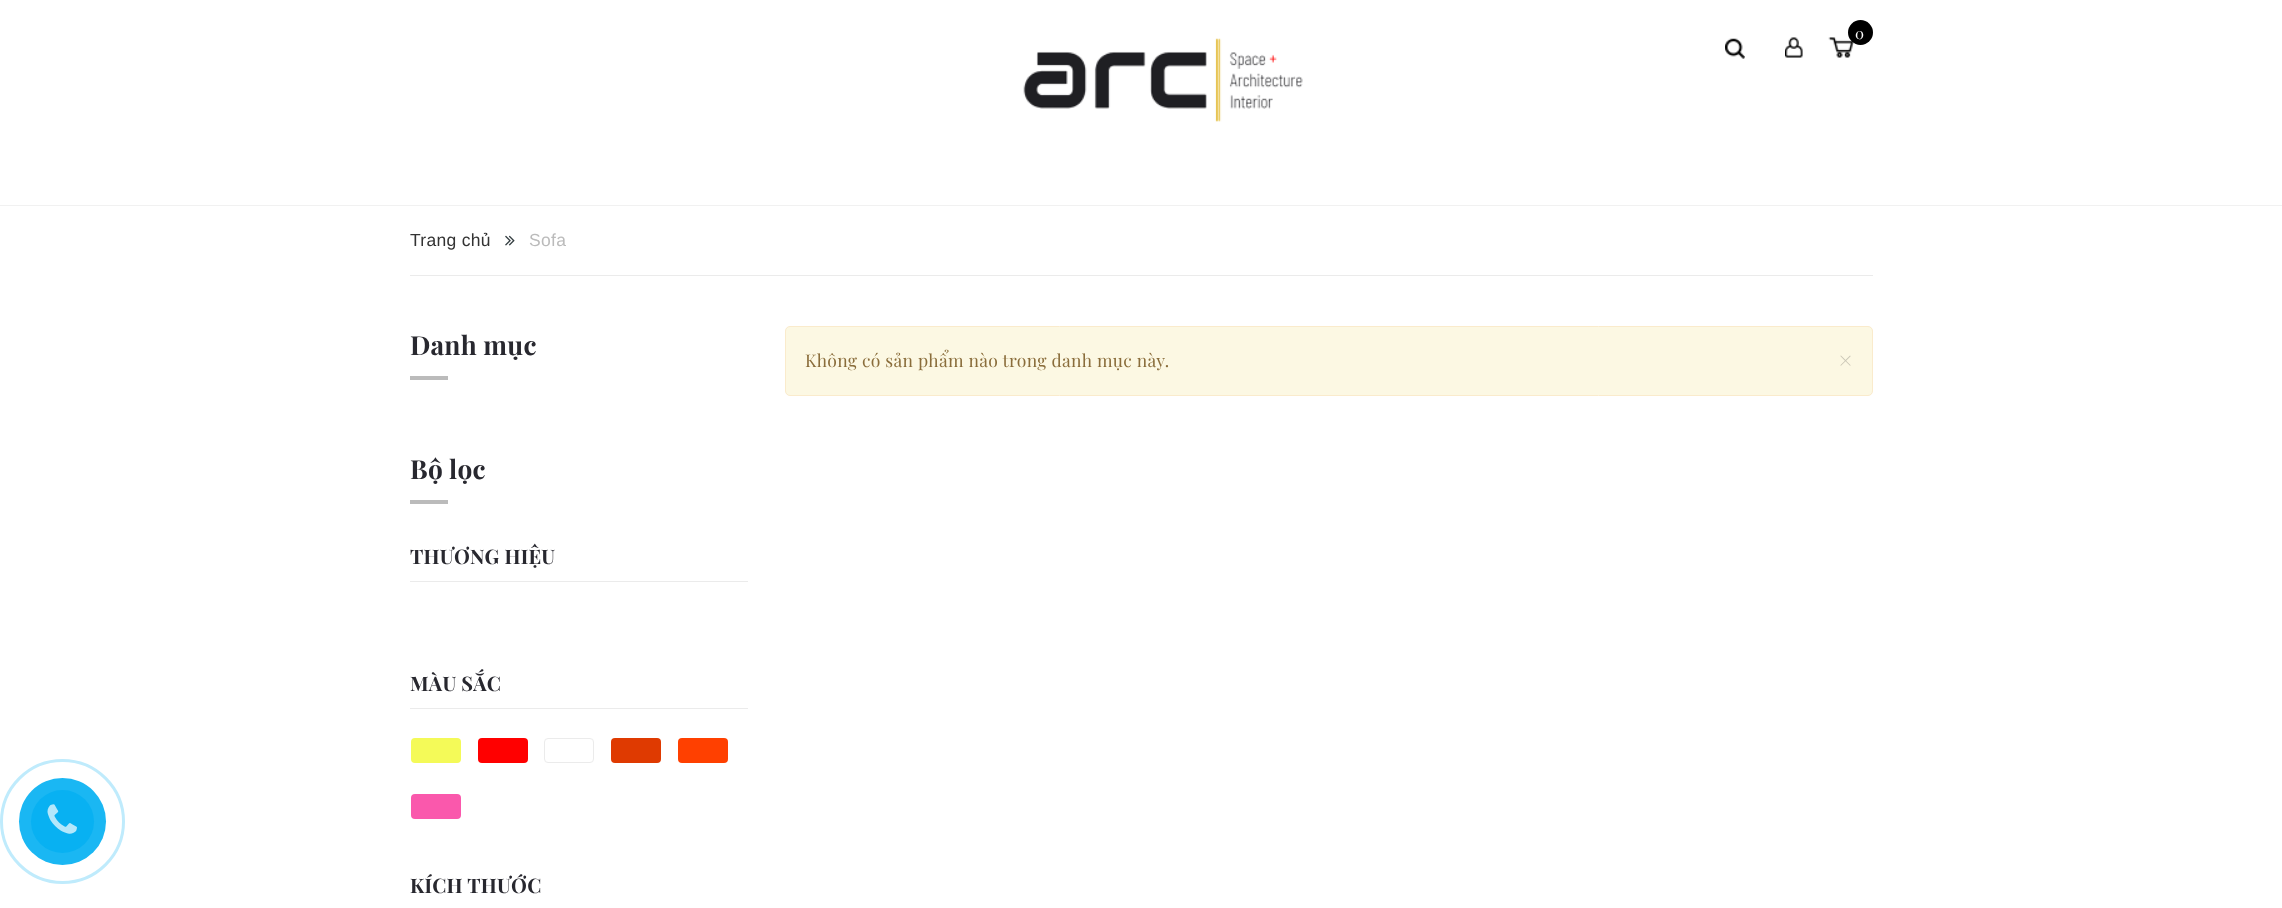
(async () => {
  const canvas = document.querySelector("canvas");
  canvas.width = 2282;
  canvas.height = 908;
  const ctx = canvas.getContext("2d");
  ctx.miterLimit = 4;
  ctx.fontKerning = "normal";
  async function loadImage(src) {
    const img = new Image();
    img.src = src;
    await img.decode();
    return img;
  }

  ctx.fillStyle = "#ffffff";
  ctx.fillRect(0, 0, 2282, 908);
  ctx.fillStyle = "#f1f1f1";
  ctx.fillRect(0, 205, 2282, 1);
  ctx.drawImage(await loadImage("img/1.png"), 1828, 37, 26, 21);
  ctx.fillStyle = "#000000";
  ctx.beginPath();
  ctx.arc(1860.5, 32.5, 12.5, 0, Math.PI * 2);
  ctx.fill();
  ctx.drawImage(await loadImage("img/2.png"), 1725, 38, 20, 21);
  ctx.drawImage(await loadImage("img/3.png"), 1785, 37, 18, 21);
  ctx.drawImage(await loadImage("img/4.png"), 1023, 38, 280, 84);
  ctx.fillStyle = "#ebebeb";
  ctx.fillRect(410, 275, 1463, 1);
  ctx.drawImage(await loadImage("img/5.png"), 505, 235, 10, 11);
  ctx.beginPath();
  ctx.arc(62.5, 821.5, 61, 0, Math.PI * 2);
  ctx.strokeStyle = "#bfebfc";
  ctx.lineWidth = 3;
  ctx.stroke();
  ctx.fillStyle = "#1ab7f3";
  ctx.beginPath();
  ctx.arc(62.5, 821.5, 43.5, 0, Math.PI * 2);
  ctx.fill();
  ctx.fillStyle = "#08b1f2";
  ctx.beginPath();
  ctx.arc(62.5, 821.5, 31.5, 0, Math.PI * 2);
  ctx.fill();
  ctx.drawImage(await loadImage("img/6.png"), 47, 804, 30, 30);
  for (const [x, y, w, h, color] of [
    [410, 376, 38, 4, "#bbbbbb"],
    [410, 500, 38, 4, "#bbbbbb"],
    [410, 581, 338, 1, "#ebebeb"],
    [410, 708, 338, 1, "#ebebeb"],
  ]) {
    ctx.fillStyle = color;
    ctx.fillRect(x, y, w, h);
  }
  ctx.fillStyle = "#f4fa58";
  ctx.beginPath();
  ctx.roundRect(411, 738, 50, 25, 4);
  ctx.fill();
  ctx.fillStyle = "#ff0000";
  ctx.beginPath();
  ctx.roundRect(478, 738, 50, 25, 4);
  ctx.fill();
  ctx.beginPath();
  ctx.roundRect(544.5, 738.5, 49, 24, 3.5);
  ctx.strokeStyle = "#ebebeb";
  ctx.lineWidth = 1;
  ctx.stroke();
  ctx.fillStyle = "#df3a01";
  ctx.beginPath();
  ctx.roundRect(611, 738, 50, 25, 4);
  ctx.fill();
  ctx.fillStyle = "#ff4000";
  ctx.beginPath();
  ctx.roundRect(678, 738, 50, 25, 4);
  ctx.fill();
  ctx.fillStyle = "#fa58ac";
  ctx.beginPath();
  ctx.roundRect(411, 794, 50, 25, 4);
  ctx.fill();
  ctx.fillStyle = "#fcf8e3";
  ctx.beginPath();
  ctx.roundRect(785.5, 326.5, 1087, 69, 4.5);
  ctx.fill();
  ctx.strokeStyle = "#faebcc";
  ctx.stroke();
  ctx.letterSpacing = "0.3px";
  ctx.font = "15px Playfair Display";
  ctx.fillStyle = "#ffffff";
  ctx.fillText("0", 1855, 39);
  ctx.font = "17.5px Liberation Sans";
  ctx.fillStyle = "#333333";
  ctx.fillText("Trang chủ", 410, 246);
  ctx.fillStyle = "#bbbbbb";
  ctx.fillText("Sofa", 529, 246);
  ctx.letterSpacing = "0.25px";
  ctx.font = "bold 26.25px Playfair Display";
  ctx.fillStyle = "#28282f";
  ctx.fillText("Danh mục", 410, 355);
  ctx.fillText("Bộ lọc", 410, 479);
  ctx.font = "bold 20px Playfair Display";
  for (const [text, x, y] of [
    ["THƯƠNG HIỆU", 410, 564],
    ["MÀU SẮC", 410, 691],
    ["KÍCH THƯỚC", 410, 893],
  ]) {
    ctx.fillText(text, x, y);
  }
  ctx.letterSpacing = "0.3px";
  ctx.font = "17.5px Playfair Display";
  ctx.fillStyle = "#8a6d3b";
  ctx.fillText("Không có sản phẩm nào trong danh mục này.", 805, 367);
  ctx.font = "bold 26.25px Playfair Display";
  ctx.fillStyle = "#cac6b6";
  ctx.fillText("×", 1839, 370);
})();
